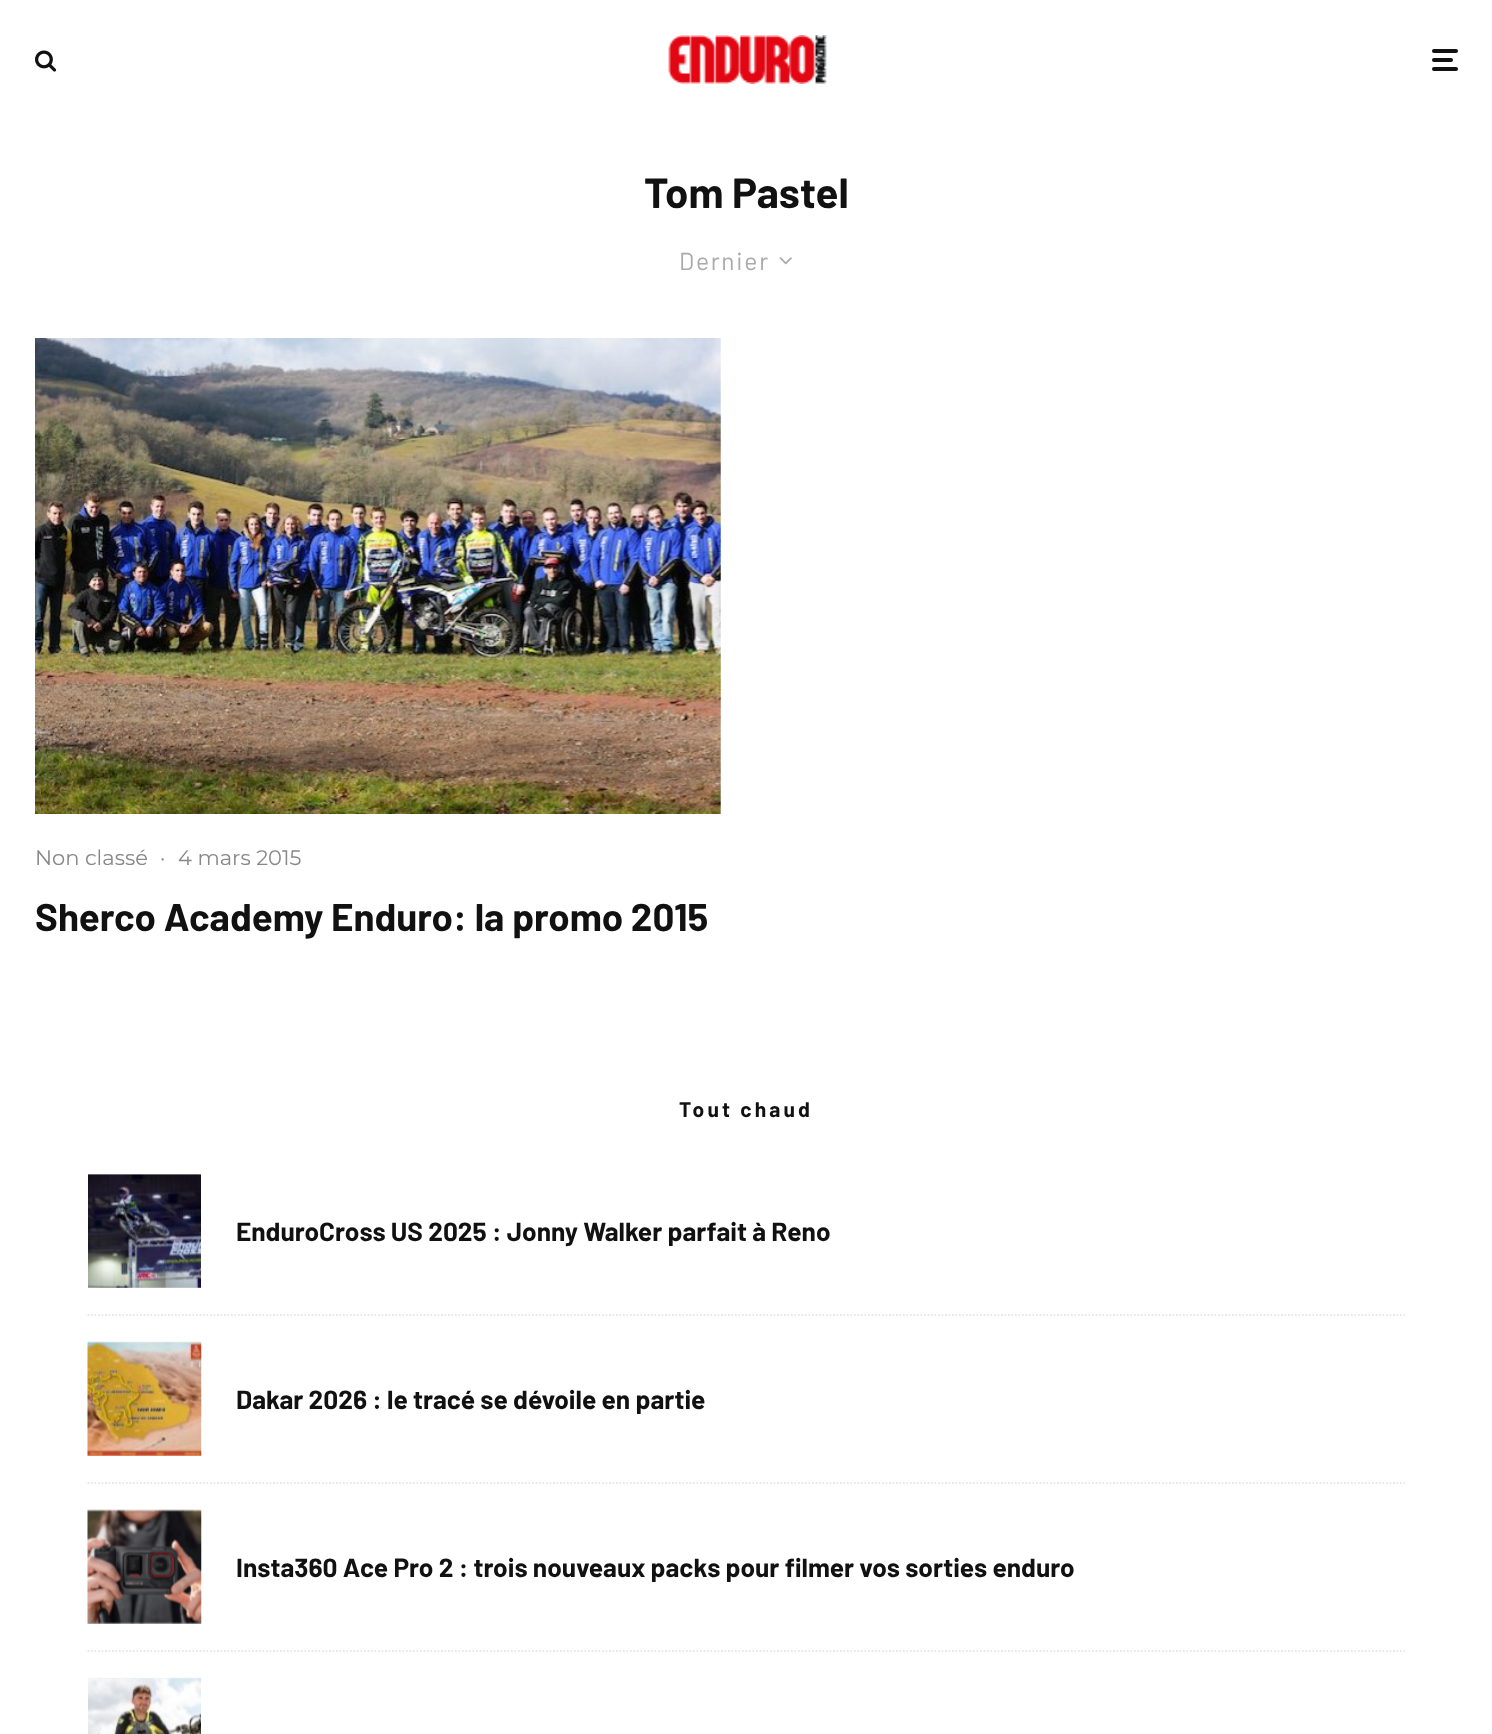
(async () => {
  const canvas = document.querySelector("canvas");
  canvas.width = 1492;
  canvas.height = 1734;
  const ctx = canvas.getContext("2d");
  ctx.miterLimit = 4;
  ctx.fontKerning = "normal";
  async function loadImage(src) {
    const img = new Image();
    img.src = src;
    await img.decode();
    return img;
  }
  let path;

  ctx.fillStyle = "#ffffff";
  ctx.fillRect(0, 0, 1492, 1734);
  ctx.drawImage(await loadImage("img/1.png"), 35, 50, 22, 22);
  ctx.drawImage(await loadImage("img/2.png"), 668, 35, 159, 49);
  ctx.fillStyle = "#111111";
  ctx.beginPath();
  ctx.roundRect(1432, 58, 21, 4, 2);
  ctx.fill();
  ctx.beginPath();
  ctx.roundRect(1432, 49, 26, 4, 2);
  ctx.fill();
  ctx.beginPath();
  ctx.roundRect(1432, 67, 26, 4, 2);
  ctx.fill();
  ctx.drawImage(await loadImage("img/3.png"), 779, 257, 13, 8);
  ctx.drawImage(await loadImage("img/4.png"), 35, 338, 686, 476);
  path = new Path2D("M87.5 1315H1405");
  ctx.strokeStyle = "#e9e9e9";
  ctx.lineWidth = 1.8;
  ctx.setLineDash([1.75, 1.75]);
  ctx.stroke(path);
  ctx.fillStyle = "#eeeeee";
  ctx.fillRect(88, 1174, 113, 114);
  ctx.drawImage(await loadImage("img/5.png"), 88, 1174, 113, 114);
  path = new Path2D("M87.5 1483H1405");
  ctx.stroke(path);
  ctx.fillRect(88, 1342, 113, 114);
  ctx.drawImage(await loadImage("img/6.png"), 87, 1341, 115, 115);
  path = new Path2D("M87.5 1651H1405");
  ctx.stroke(path);
  ctx.fillRect(88, 1510, 113, 114);
  ctx.drawImage(await loadImage("img/7.png"), 87, 1509, 115, 115);
  ctx.fillRect(88, 1678, 113, 1);
  ctx.drawImage(await loadImage("img/8.png"), 88, 1677, 113, 57);
  ctx.font = "bold 42px Barlow";
  ctx.fillStyle = "#111111";
  ctx.fillText("Tom Pastel", 644, 208);
  ctx.letterSpacing = "1.75px";
  ctx.font = "24.5px Barlow";
  ctx.fillStyle = "#aaaaaa";
  ctx.fillText("Dernier", 679, 270);
  ctx.letterSpacing = "0px";
  ctx.font = "21px Montserrat";
  ctx.fillStyle = "#888888";
  for (const [text, x, y] of [
    ["Non classé", 35, 865],
    ["·", 160, 865],
    ["4 mars 2015", 178, 865],
  ]) {
    ctx.fillText(text, x, y);
  }
  ctx.font = "bold 38.5px Barlow";
  ctx.fillStyle = "#111111";
  ctx.fillText("Sherco Academy Enduro: la promo 2015", 35, 931);
  ctx.letterSpacing = "3.1px";
  ctx.font = "bold 21px Barlow";
  ctx.fillText("Tout chaud", 679, 1117);
  ctx.letterSpacing = "0px";
  ctx.font = "bold 26.25px Barlow";
  for (const [text, x, y] of [
    ["EnduroCross US 2025 : Jonny Walker parfait à Reno", 236, 1241],
    ["Dakar 2026 : le tracé se dévoile en partie", 236, 1409],
    ["Insta360 Ace Pro 2 : trois nouveaux packs pour filmer vos sorties enduro", 236, 1577],
  ]) {
    ctx.fillText(text, x, y);
  }
})();
